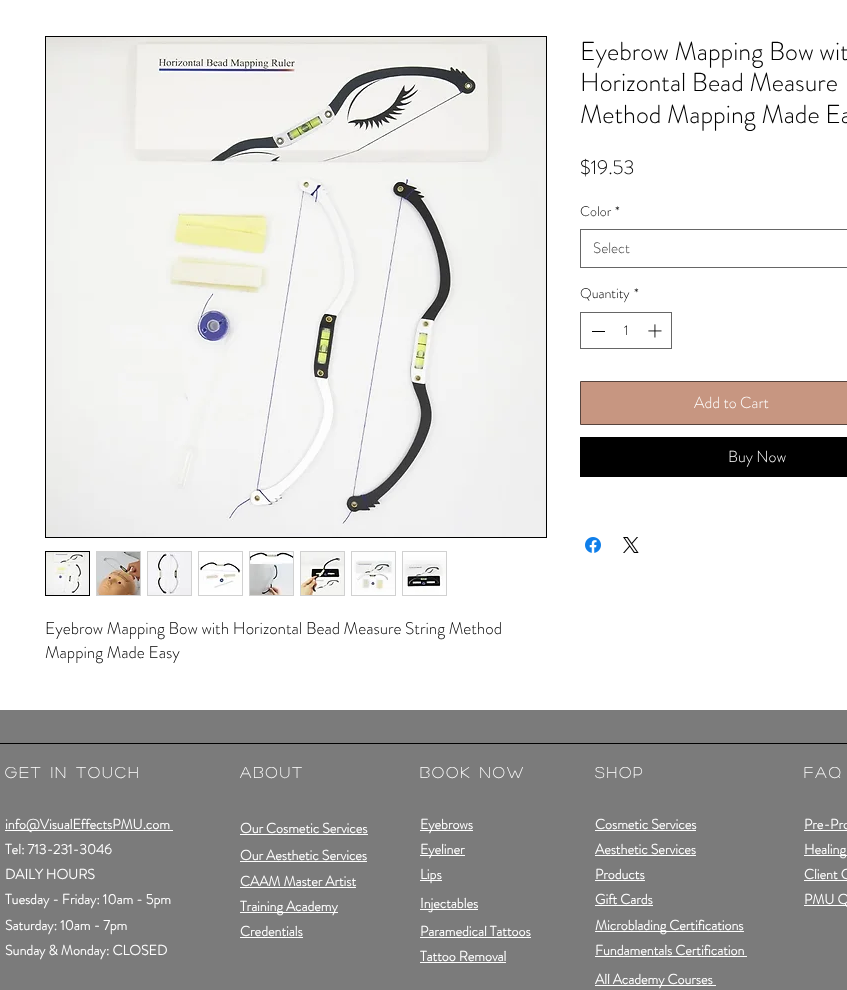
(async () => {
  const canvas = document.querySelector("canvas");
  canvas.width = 847;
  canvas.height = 990;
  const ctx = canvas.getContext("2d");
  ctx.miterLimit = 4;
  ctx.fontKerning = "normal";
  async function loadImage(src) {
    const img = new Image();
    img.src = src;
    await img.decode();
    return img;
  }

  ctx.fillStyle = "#ffffff";
  ctx.fillRect(0, 0, 847, 990);
  ctx.strokeStyle = "#666666";
  ctx.strokeRect(580.5, 229.5, 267, 38);
  ctx.strokeRect(580.5, 312.5, 91, 36);
  ctx.fillStyle = "#000000";
  ctx.fillRect(592, 331, 13, 1);
  ctx.drawImage(await loadImage("img/1.png"), 648, 324, 14, 14);
  ctx.fillStyle = "#c79681";
  ctx.beginPath();
  ctx.rect(580.5, 381.5, 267, 43);
  ctx.fill();
  ctx.strokeStyle = "#57443d";
  ctx.stroke();
  ctx.fillStyle = "#000000";
  ctx.fillRect(580, 437, 267, 40);
  ctx.drawImage(await loadImage("img/2.png"), 585, 537, 16, 16);
  ctx.drawImage(await loadImage("img/3.png"), 623, 537, 16, 16);
  ctx.strokeStyle = "#000000";
  ctx.strokeRect(45.5, 36.5, 501, 501);
  ctx.drawImage(await loadImage("img/4.png"), 46, 37, 500, 500);
  ctx.strokeRect(45.5, 551.5, 44, 44);
  ctx.drawImage(await loadImage("img/5.png"), 46, 552, 43, 43);
  ctx.fillStyle = "#d1d1d1";
  ctx.fillRect(96, 551, 45, 45);
  ctx.drawImage(await loadImage("img/6.png"), 97, 552, 43, 43);
  ctx.fillRect(147, 551, 45, 45);
  ctx.drawImage(await loadImage("img/7.png"), 148, 552, 43, 43);
  ctx.fillRect(198, 551, 45, 45);
  ctx.drawImage(await loadImage("img/8.png"), 199, 552, 43, 43);
  ctx.fillRect(249, 551, 45, 45);
  ctx.drawImage(await loadImage("img/9.png"), 250, 552, 43, 43);
  ctx.fillRect(300, 551, 45, 45);
  ctx.drawImage(await loadImage("img/10.png"), 301, 552, 43, 43);
  ctx.fillRect(351, 551, 45, 45);
  ctx.drawImage(await loadImage("img/11.png"), 352, 552, 43, 43);
  ctx.fillRect(402, 551, 45, 45);
  ctx.drawImage(await loadImage("img/12.png"), 403, 552, 43, 43);
  for (const [x, y, w, h, color] of [
    [0, 710, 847, 280, "#7b7b7b"],
    [0, 743, 847, 1, "#000000"],
    [5, 830, 168, 1, "#ffffff"],
    [240, 834, 128, 1, "#ffffff"],
    [240, 861, 127, 1, "#ffffff"],
    [240, 887, 116, 1, "#ffffff"],
    [240, 912, 98, 1, "#ffffff"],
    [240, 937, 63, 1, "#ffffff"],
    [420, 830, 53, 1, "#ffffff"],
    [420, 855, 45, 1, "#ffffff"],
    [420, 880, 22, 1, "#ffffff"],
    [420, 909, 58, 1, "#ffffff"],
    [420, 937, 111, 1, "#ffffff"],
    [420, 962, 86, 1, "#ffffff"],
    [595, 830, 101, 1, "#ffffff"],
    [595, 855, 101, 1, "#ffffff"],
    [595, 880, 50, 1, "#ffffff"],
    [595, 905, 58, 1, "#ffffff"],
    [595, 931, 149, 1, "#ffffff"],
    [595, 956, 152, 1, "#ffffff"],
    [595, 985, 69, 1, "#ffffff"],
    [664, 985, 52, 1, "#ffffff"],
    [804, 830, 43, 1, "#ffffff"],
    [804, 855, 43, 1, "#ffffff"],
    [804, 880, 43, 1, "#ffffff"],
    [804, 905, 43, 1, "#ffffff"],
  ]) {
    ctx.fillStyle = color;
    ctx.fillRect(x, y, w, h);
  }
  ctx.font = "300 26px 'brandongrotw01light'";
  ctx.fillStyle = "#000000";
  for (const [text, x, y] of [
    ["Eyebrow Mapping Bow wit", 580, 60],
    ["Horizontal Bead Measure", 580, 91],
    ["Method Mapping Made Ea", 580, 123],
  ]) {
    ctx.fillText(text, x, y);
  }
  ctx.font = "300 20px 'brandongrotw01light'";
  ctx.fillText("$19.53", 580, 174);
  ctx.font = "300 14px 'brandongrotw01light'";
  ctx.fillText("Color", 580, 216);
  ctx.fillText("*", 615, 216);
  ctx.font = "300 15px 'brandongrotw01light'";
  ctx.fillStyle = "#444444";
  ctx.fillText("Select", 593, 253);
  ctx.font = "300 14px 'brandongrotw01light'";
  ctx.fillStyle = "#000000";
  for (const [text, x, y] of [
    ["Quantity", 580, 298],
    ["*", 634, 298],
    ["1", 624, 335],
  ]) {
    ctx.fillText(text, x, y);
  }
  ctx.font = "300 16px 'brandongrotw01light'";
  ctx.fillStyle = "#ffffff";
  ctx.fillText("Add to Cart", 694, 408);
  ctx.fillText("Buy Now", 728, 462);
  ctx.font = "300 17px 'brandongrotw01light'";
  ctx.fillStyle = "#000000";
  ctx.fillText("Eyebrow Mapping Bow with Horizontal Bead Measure String Method", 45, 634);
  ctx.fillText("Mapping Made Easy", 45, 658);
  ctx.letterSpacing = "2.75px";
  ctx.font = "bold 15px 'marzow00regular'";
  ctx.fillStyle = "#ffffff";
  for (const [text, x, y] of [
    ["Get In Touch", 5, 778],
    ["About", 240, 778],
    ["Book Now", 420, 778],
    ["Shop", 595, 778],
    ["FAQ", 804, 778],
  ]) {
    ctx.fillText(text, x, y);
  }
  ctx.letterSpacing = "0px";
  ctx.font = "bold 14px 'brandongrotw01light'";
  for (const [text, x, y] of [
    ["info@VisualEffectsPMU.com", 5, 829],
    ["Tel: 713-231-3046", 5, 854],
    ["DAILY HOURS", 5, 879],
    ["Tuesday - Friday: 10am - 5pm", 5, 904],
    ["Saturday: 10am - 7pm", 5, 930],
    ["Sunday & Monday: CLOSED", 5, 955],
    ["Our Cosmetic Services", 240, 833],
    ["Our Aesthetic Services", 240, 860],
    ["CAAM Master Artist", 240, 886],
    ["Training Academy", 240, 911],
    ["Credentials", 240, 936],
    ["Eyebrows", 420, 829],
    ["Eyeliner", 420, 854],
    ["Lips", 420, 879],
    ["Injectables", 420, 908],
    ["Paramedical Tattoos", 420, 936],
    ["Tattoo Removal", 420, 961],
    ["Cosmetic Services", 595, 829],
    ["Aesthetic Services", 595, 854],
    ["Products", 595, 879],
    ["Gift Cards", 595, 904],
    ["Microblading Certifications", 595, 930],
    ["Fundamentals Certification", 595, 955],
    ["All Academy Courses", 595, 984],
    ["Pre-Pro", 804, 829],
    ["Healing", 804, 854],
    ["Client C", 804, 879],
    ["PMU Q", 804, 904],
  ]) {
    ctx.fillText(text, x, y);
  }
})();
